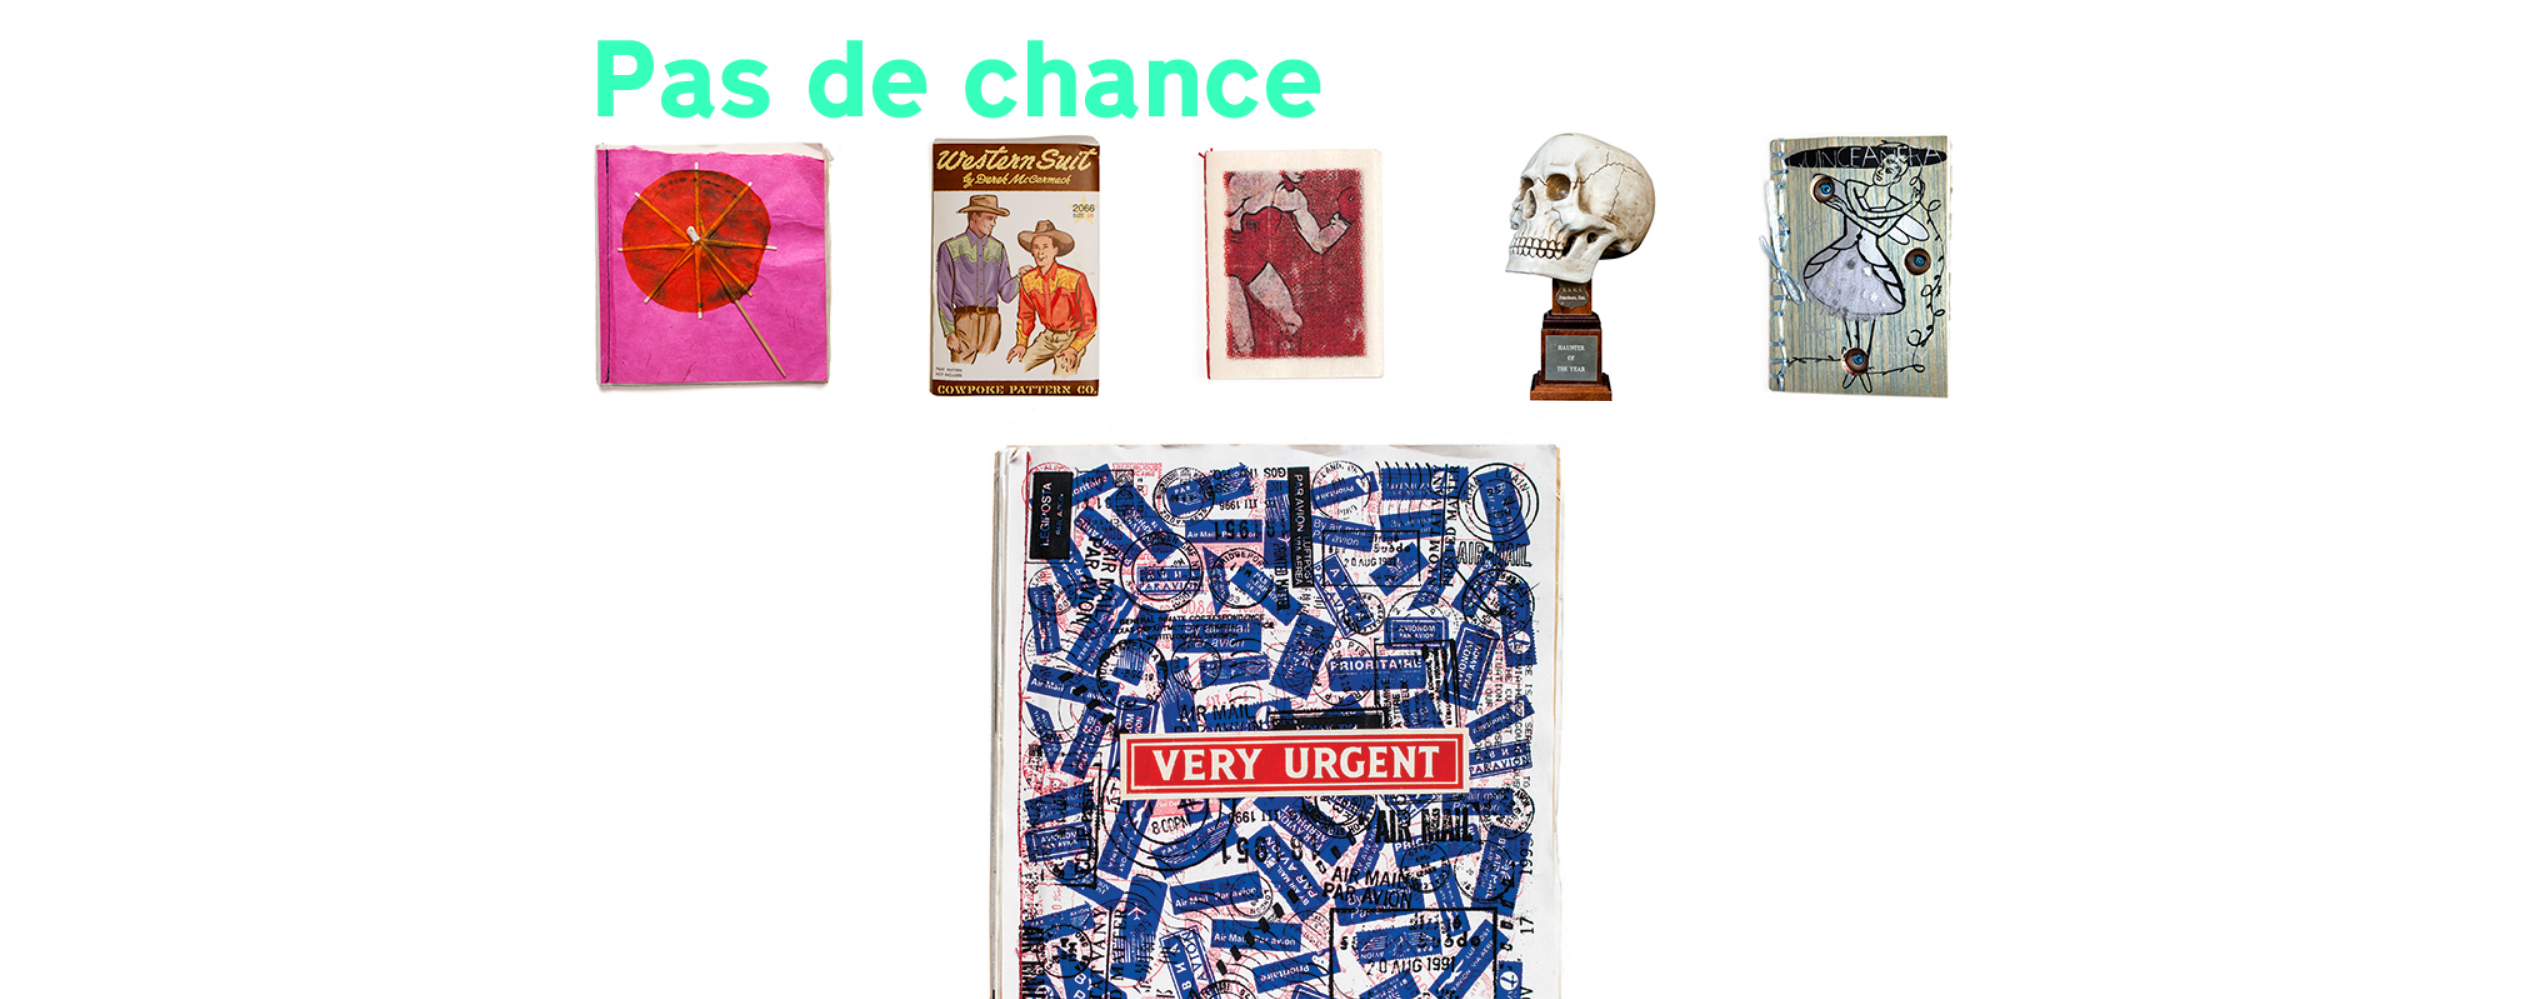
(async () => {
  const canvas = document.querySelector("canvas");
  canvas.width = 2536;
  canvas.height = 999;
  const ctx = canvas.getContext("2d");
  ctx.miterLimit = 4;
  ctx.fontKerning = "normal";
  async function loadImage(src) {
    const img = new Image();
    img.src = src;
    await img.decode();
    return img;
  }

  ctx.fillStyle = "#ffffff";
  ctx.fillRect(0, 0, 2536, 999);
  ctx.drawImage(await loadImage("img/1.png"), 597, 39, 725, 86);
  ctx.drawImage(await loadImage("img/2.png"), 597, 40, 724, 79);
  ctx.drawImage(await loadImage("img/3.png"), 593, 141, 248, 254);
  ctx.drawImage(await loadImage("img/4.png"), 927, 134, 174, 267);
  ctx.drawImage(await loadImage("img/5.png"), 1192, 144, 194, 239);
  ctx.drawImage(await loadImage("img/6.png"), 1504, 132, 153, 270);
  ctx.drawImage(await loadImage("img/7.png"), 1758, 132, 195, 269);
  ctx.drawImage(await loadImage("img/8.png"), 988, 401, 624, 598);
})();
